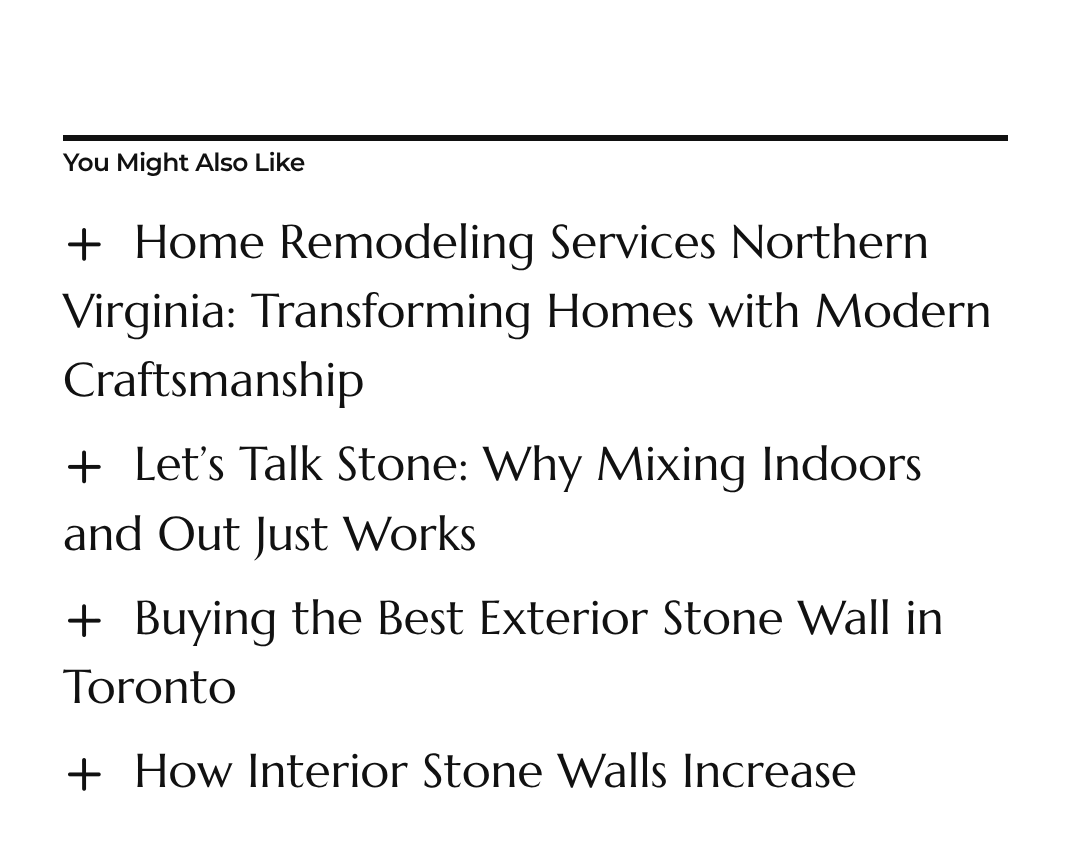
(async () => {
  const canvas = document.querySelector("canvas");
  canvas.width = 1070;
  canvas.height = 843;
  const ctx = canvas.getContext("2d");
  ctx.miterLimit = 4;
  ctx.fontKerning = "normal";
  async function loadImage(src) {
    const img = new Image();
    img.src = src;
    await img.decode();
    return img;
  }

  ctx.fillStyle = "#ffffff";
  ctx.fillRect(0, 0, 1070, 843);
  ctx.fillStyle = "#111111";
  ctx.fillRect(63, 135, 945, 6);
  ctx.drawImage(await loadImage("img/1.png"), 68, 228, 33, 33);
  ctx.drawImage(await loadImage("img/2.png"), 68, 450, 33, 34);
  ctx.drawImage(await loadImage("img/3.png"), 68, 604, 33, 33);
  ctx.drawImage(await loadImage("img/1.png"), 68, 758, 33, 33);
  ctx.letterSpacing = "-0.6px";
  ctx.font = "600 25px Montserrat";
  ctx.fillText("You Might Also Like", 63, 171);
  ctx.letterSpacing = "0px";
  ctx.font = "47.5px Marcellus";
  for (const [text, x, y] of [
    ["Home Remodeling Services Northern", 134, 258],
    ["Virginia: Transforming Homes with Modern", 63, 327],
    ["Craftsmanship", 63, 396],
    ["Let’s Talk Stone: Why Mixing Indoors", 134, 480],
    ["and Out Just Works", 63, 550],
    ["Buying the Best Exterior Stone Wall in", 134, 634],
    ["Toronto", 63, 703],
    ["How Interior Stone Walls Increase", 134, 787],
  ]) {
    ctx.fillText(text, x, y);
  }
})();
